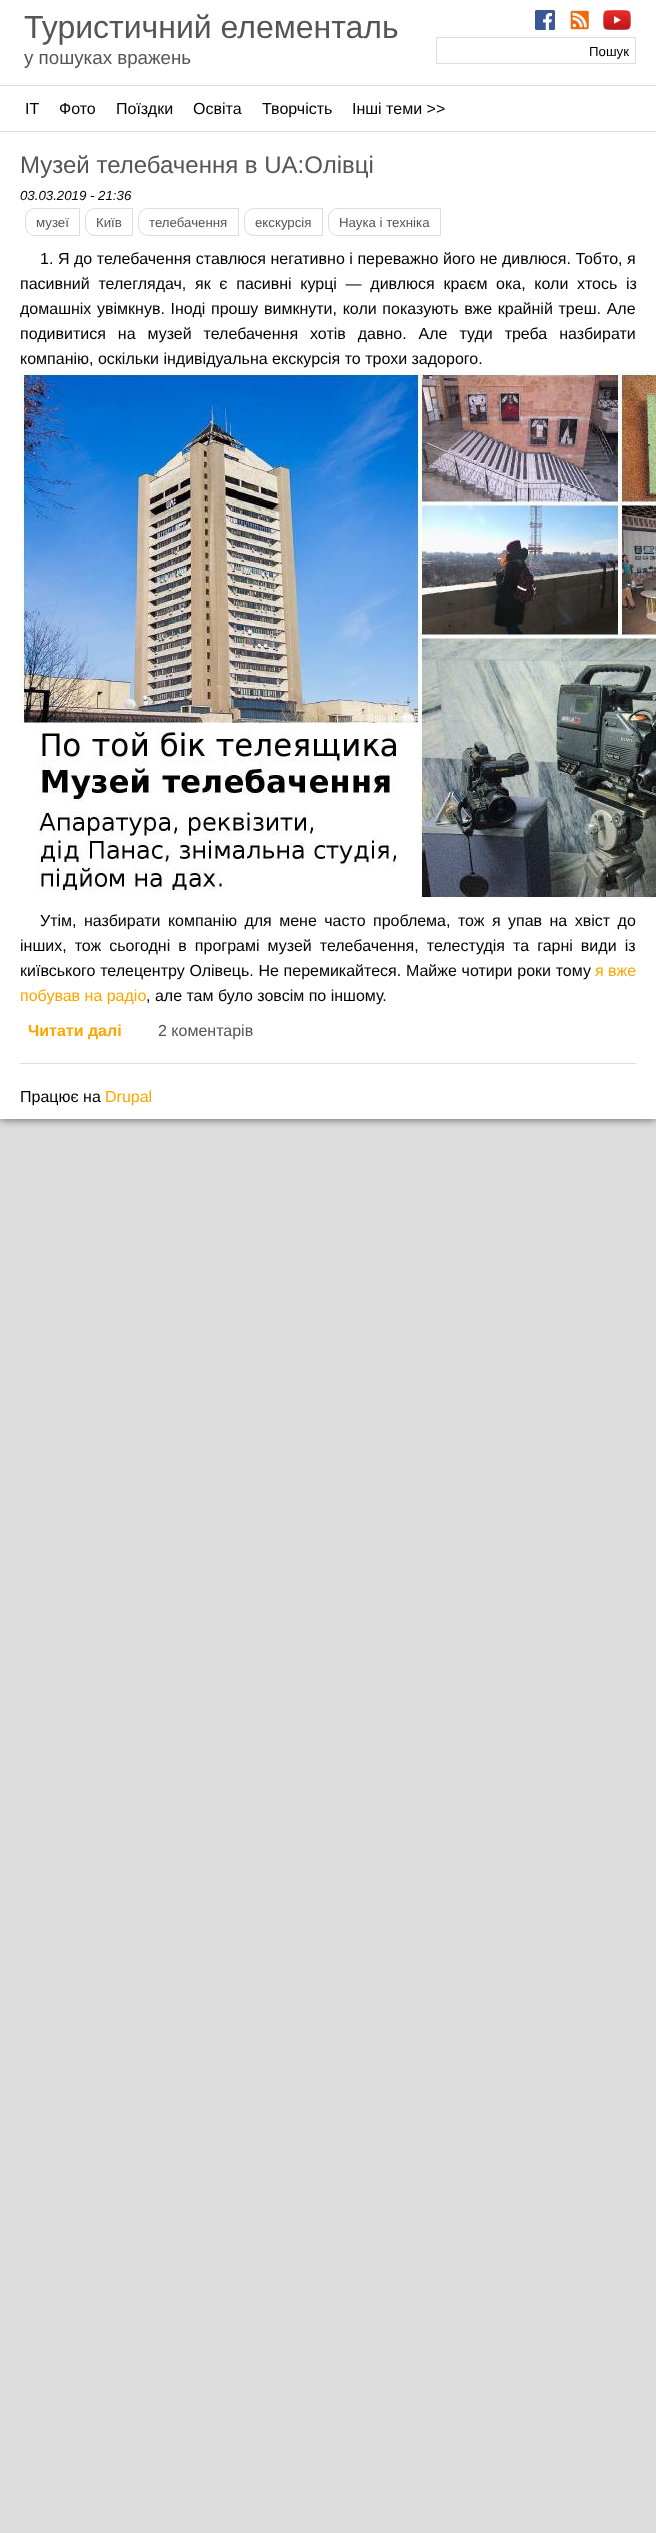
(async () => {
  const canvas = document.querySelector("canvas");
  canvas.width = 656;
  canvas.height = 2533;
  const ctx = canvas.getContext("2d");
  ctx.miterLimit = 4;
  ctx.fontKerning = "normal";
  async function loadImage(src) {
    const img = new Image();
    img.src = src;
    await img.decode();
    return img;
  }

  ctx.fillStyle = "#dddddd";
  ctx.fillRect(0, 0, 656, 2533);
  ctx.fillStyle = "#555555";
  ctx.filter = "blur(5px)";
  ctx.beginPath();
  ctx.rect(0, 0, 656, 1119);
  ctx.fill();
  ctx.filter = "none";
  ctx.fillStyle = "#ffffff";
  ctx.fillRect(0, 0, 656, 1119);
  ctx.drawImage(await loadImage("img/1.png"), 535, 10, 20, 20);
  ctx.drawImage(await loadImage("img/2.png"), 570, 10, 19, 20);
  ctx.drawImage(await loadImage("img/3.png"), 603, 10, 28, 20);
  ctx.strokeStyle = "#dddddd";
  ctx.strokeRect(436.5, 37.5, 199, 26);
  for (const [x, y, w, h, color] of [
    [0, 85, 656, 1, "#dddddd"],
    [0, 131, 656, 1, "#dddddd"],
    [20, 1063, 616, 1, "#dddddd"],
  ]) {
    ctx.fillStyle = color;
    ctx.fillRect(x, y, w, h);
  }
  ctx.beginPath();
  ctx.roundRect(25.5, 208.5, 54, 27, [9.5, 0, 0, 9.5]);
  ctx.stroke();
  ctx.beginPath();
  ctx.roundRect(85.5, 208.5, 47, 27, [9.5, 0, 0, 9.5]);
  ctx.stroke();
  ctx.beginPath();
  ctx.roundRect(138.5, 208.5, 100, 27, [9.5, 0, 0, 9.5]);
  ctx.stroke();
  ctx.beginPath();
  ctx.roundRect(244.5, 208.5, 78, 27, [9.5, 0, 0, 9.5]);
  ctx.stroke();
  ctx.beginPath();
  ctx.roundRect(328.5, 208.5, 112, 27, [9.5, 0, 0, 9.5]);
  ctx.stroke();
  ctx.drawImage(await loadImage("img/4.png"), 20, 371, 636, 528);
  ctx.font = "32px Liberation Sans";
  ctx.fillStyle = "#555555";
  ctx.fillText("Туристичний елементаль", 24, 38);
  ctx.font = "18.75px Liberation Sans";
  ctx.fillText("у пошуках вражень", 24, 64);
  ctx.font = "13.25px Liberation Sans";
  ctx.fillStyle = "#000000";
  ctx.fillText("Пошук", 589, 56);
  ctx.font = "16px Liberation Sans";
  for (const [text, x, y] of [
    ["ІТ", 25, 114],
    ["Фото", 59, 114],
    ["Поїздки", 116, 114],
    ["Освіта", 193, 114],
    ["Творчість", 262, 114],
    ["Інші теми >>", 352, 114],
  ]) {
    ctx.fillText(text, x, y);
  }
  ctx.font = "24px Liberation Sans";
  ctx.fillStyle = "#555555";
  ctx.fillText("Музей телебачення в UA:Олівці", 20, 173);
  ctx.font = "italic 13.25px Liberation Sans";
  ctx.fillStyle = "#000000";
  ctx.fillText("03.03.2019 - 21:36", 20, 200);
  ctx.font = "13.25px Liberation Sans";
  ctx.fillStyle = "#555555";
  for (const [text, x, y] of [
    ["музеї", 36, 227],
    ["Київ", 96, 227],
    ["телебачення", 149, 227],
    ["екскурсія", 255, 227],
    ["Наука і техніка", 339, 227],
  ]) {
    ctx.fillText(text, x, y);
  }
  ctx.wordSpacing = "0.1px";
  ctx.font = "16px Liberation Sans";
  ctx.fillStyle = "#000000";
  ctx.fillText("1. Я до телебачення ставлюся негативно і переважно його не дивлюся. Тобто, я", 40, 264);
  ctx.wordSpacing = "4.25px";
  ctx.fillText("пасивний телеглядач, як є пасивні курці — дивлюся краєм ока, коли хтось із", 20, 289);
  ctx.wordSpacing = "1.25px";
  ctx.fillText("домашніх увімкнув. Іноді прошу вимкнути, коли показують вже крайній треш. Але", 20, 314);
  ctx.wordSpacing = "7.5px";
  ctx.fillText("подивитися на музей телебачення хотів давно. Але туди треба назбирати", 20, 339);
  ctx.wordSpacing = "0px";
  ctx.fillText("компанію, оскільки індивідуальна екскурсія то трохи задорого.", 20, 364);
  ctx.wordSpacing = "3px";
  ctx.fillText("Утім, назбирати компанію для мене часто проблема, тож я упав на хвіст до", 40, 926);
  ctx.wordSpacing = "3.6px";
  ctx.fillText("інших, тож сьогодні в програмі музей телебачення, телестудія та гарні види із", 20, 951);
  ctx.wordSpacing = "0.25px";
  ctx.fillText("київського телецентру Олівець. Не перемикайтеся. Майже чотири роки тому", 20, 976);
  ctx.wordSpacing = "0px";
  ctx.fillStyle = "#ffa500";
  ctx.fillText("я вже", 595, 976);
  ctx.fillText("побував на радіо", 20, 1001);
  ctx.fillStyle = "#000000";
  ctx.fillText(", але там було зовсім по іншому.", 146, 1001);
  ctx.font = "bold 16px Liberation Sans";
  ctx.fillStyle = "#ffa500";
  ctx.fillText("Читати далі", 28, 1036);
  ctx.font = "16px Liberation Sans";
  ctx.fillStyle = "#555555";
  ctx.fillText("2 коментарів", 158, 1036);
  ctx.fillStyle = "#000000";
  ctx.fillText("Працює на", 20, 1102);
  ctx.fillStyle = "#ffa500";
  ctx.fillText("Drupal", 105, 1102);
})();
